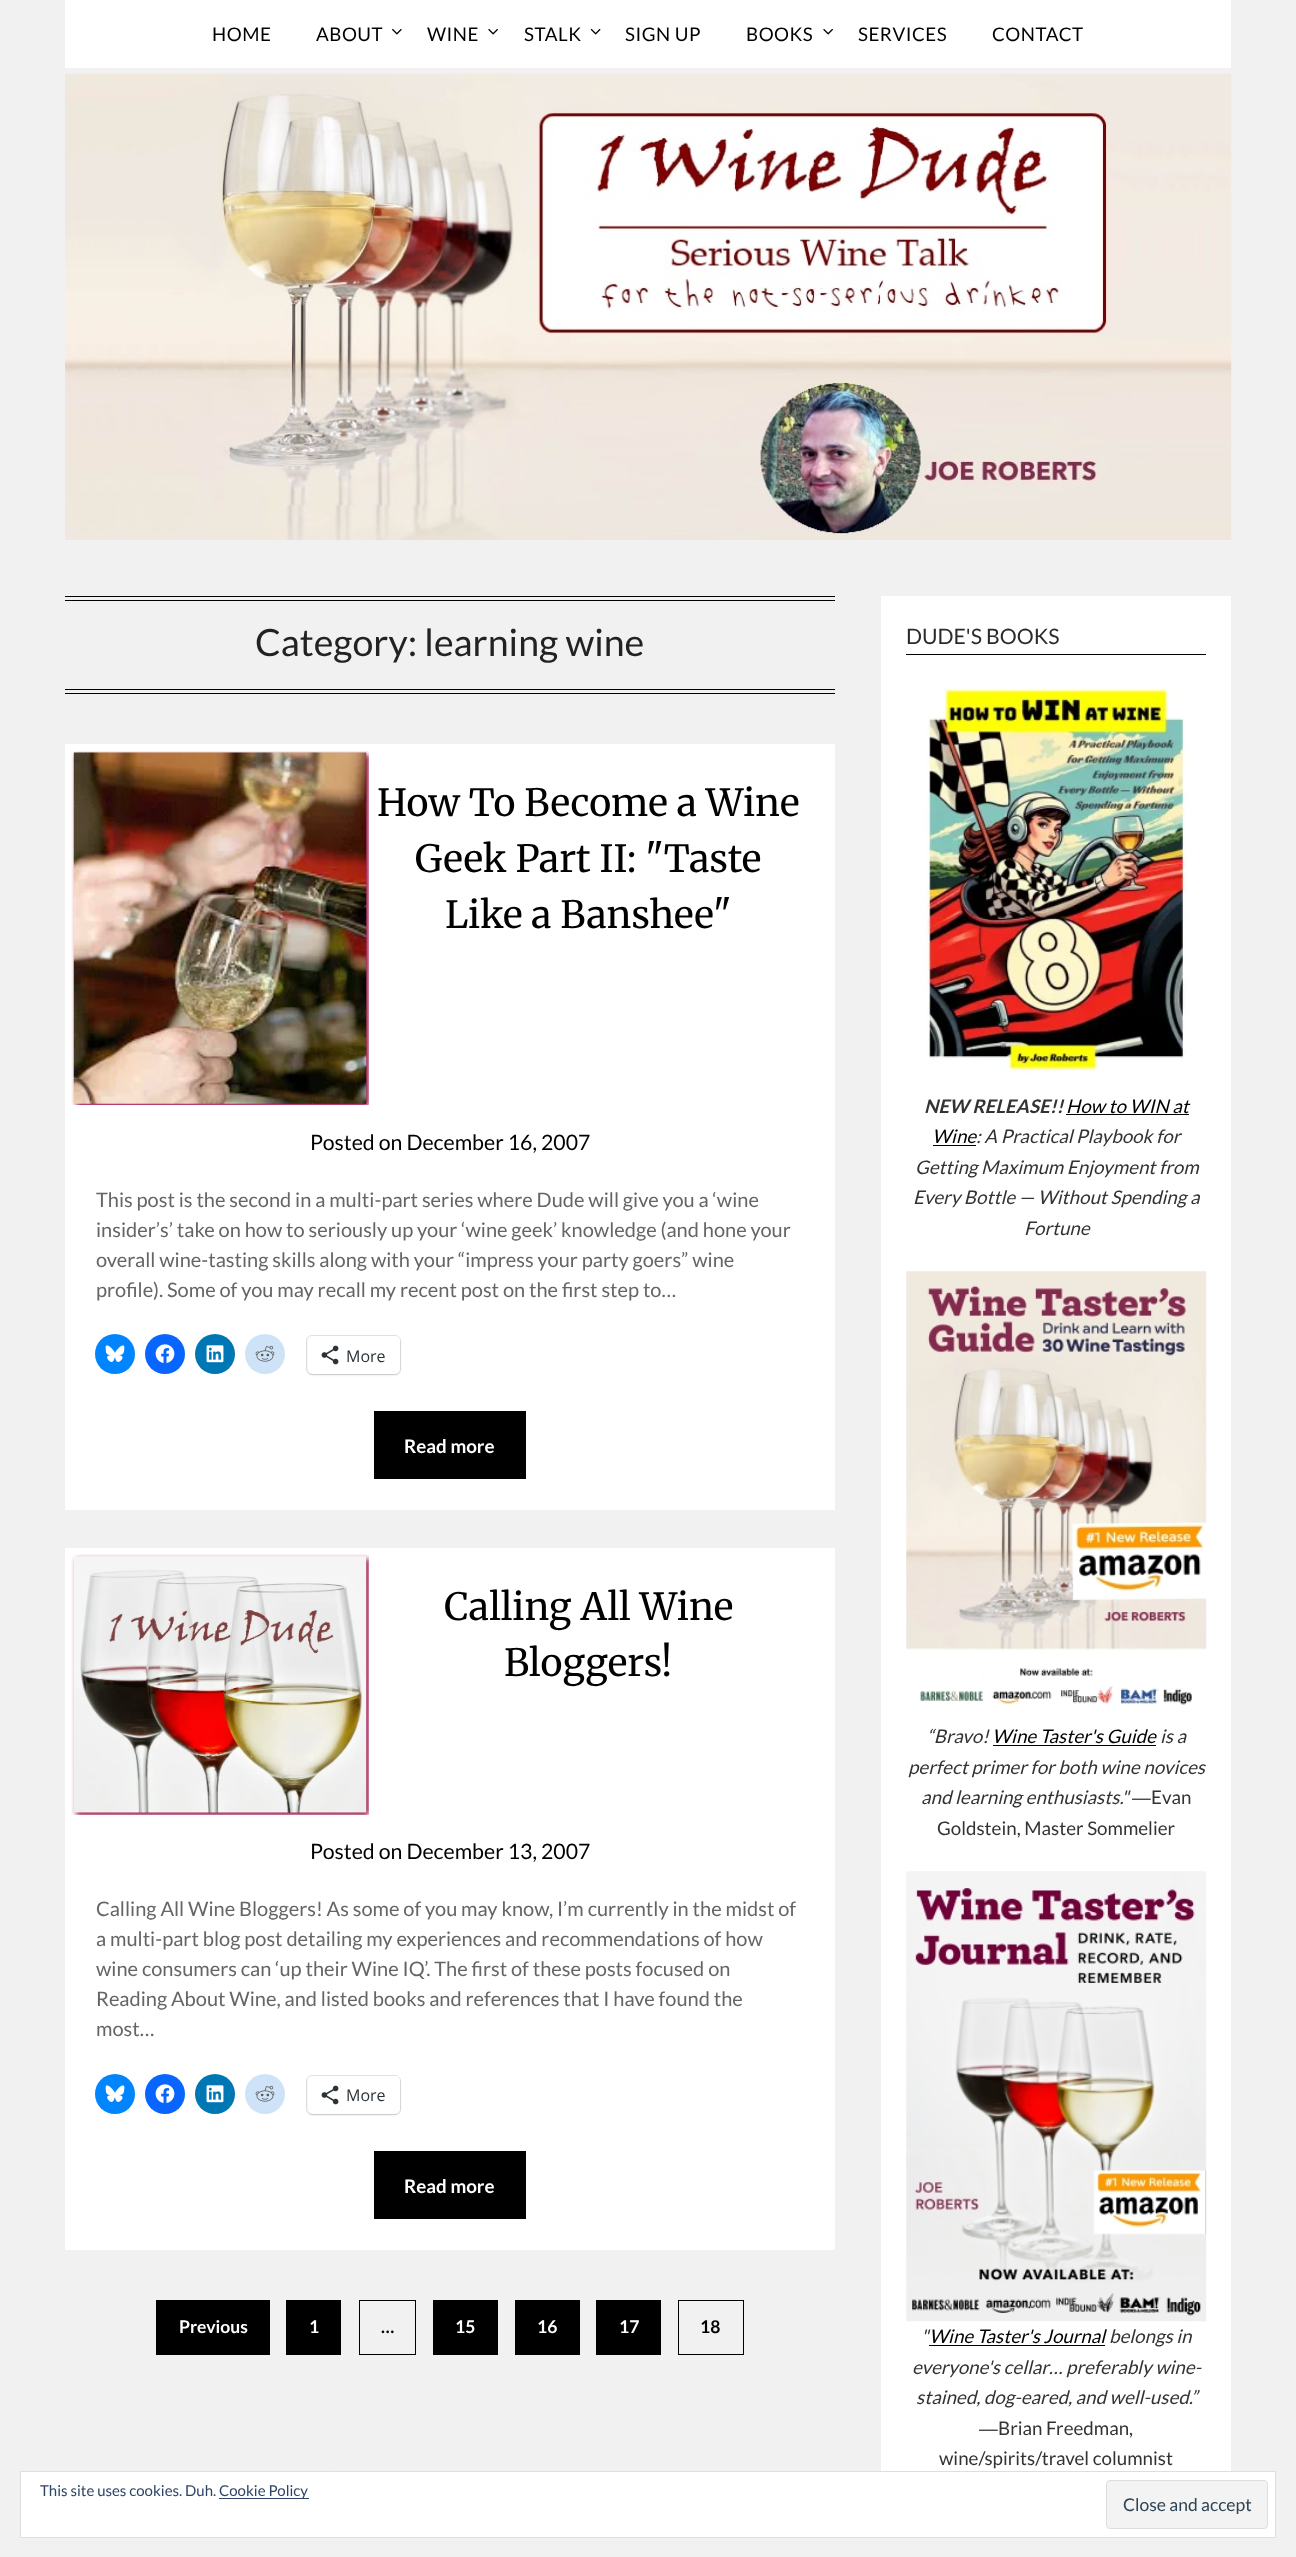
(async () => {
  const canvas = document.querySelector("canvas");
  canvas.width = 1296;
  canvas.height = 2557;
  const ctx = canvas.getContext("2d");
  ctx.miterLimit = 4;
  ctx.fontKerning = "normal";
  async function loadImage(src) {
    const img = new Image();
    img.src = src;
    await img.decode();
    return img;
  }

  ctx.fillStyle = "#f1f1f1";
  ctx.fillRect(0, 0, 1296, 2557);
  ctx.fillStyle = "#ffffff";
  ctx.fillRect(65, 0, 1166, 68);
  ctx.drawImage(await loadImage("img/1.png"), 392, 28, 10, 7);
  ctx.drawImage(await loadImage("img/2.png"), 488, 28, 10, 7);
  ctx.drawImage(await loadImage("img/3.png"), 590, 28, 11, 7);
  ctx.drawImage(await loadImage("img/2.png"), 823, 28, 10, 7);
  ctx.drawImage(await loadImage("img/4.png"), 65, 73, 1167, 467);
  for (const [x, y, w, h, color] of [
    [65, 596, 770, 1, "#000000"],
    [65, 600, 770, 1, "#000000"],
    [65, 689, 770, 1, "#000000"],
    [65, 693, 770, 1, "#000000"],
  ]) {
    ctx.fillStyle = color;
    ctx.fillRect(x, y, w, h);
  }
  ctx.fillStyle = "#ffffff";
  ctx.beginPath();
  ctx.roundRect(65, 744, 770, 766, 1);
  ctx.fill();
  ctx.drawImage(await loadImage("img/5.png"), 71, 751, 298, 354);
  ctx.fillStyle = "#0085ff";
  ctx.beginPath();
  ctx.arc(115, 1354, 20, 0, Math.PI * 2);
  ctx.fill();
  ctx.drawImage(await loadImage("img/6.png"), 105, 1345, 20, 17);
  ctx.fillStyle = "#0866ff";
  ctx.beginPath();
  ctx.arc(165, 1354, 20, 0, Math.PI * 2);
  ctx.fill();
  ctx.drawImage(await loadImage("img/7.png"), 155, 1344, 20, 19);
  ctx.fillStyle = "#0077b5";
  ctx.beginPath();
  ctx.arc(215, 1354, 20, 0, Math.PI * 2);
  ctx.fill();
  ctx.drawImage(await loadImage("img/8.png"), 206, 1345, 18, 18);
  ctx.fillStyle = "#cee3f8";
  ctx.beginPath();
  ctx.arc(265, 1354, 20, 0, Math.PI * 2);
  ctx.fill();
  ctx.drawImage(await loadImage("img/9.png"), 255, 1345, 20, 17);
  ctx.beginPath();
  ctx.roundRect(306.5, 1335.5, 94, 39, 5.5);
  ctx.strokeStyle = "#e0e0e0";
  ctx.stroke();
  ctx.fillStyle = "rgba(0, 0, 0, 0.12)";
  ctx.filter = "blur(1px)";
  ctx.beginPath();
  ctx.roundRect(308, 1338, 92, 37, 5);
  ctx.fill();
  ctx.filter = "none";
  ctx.fillStyle = "#ffffff";
  ctx.beginPath();
  ctx.roundRect(308, 1336, 92, 38, 5);
  ctx.fill();
  ctx.drawImage(await loadImage("img/10.png"), 321, 1345, 18, 20);
  ctx.fillStyle = "#000000";
  ctx.fillRect(374, 1411, 152, 68);
  ctx.fillStyle = "#ffffff";
  ctx.beginPath();
  ctx.roundRect(65, 1548, 770, 702, 1);
  ctx.fill();
  ctx.drawImage(await loadImage("img/11.png"), 71, 1554, 298, 261);
  ctx.fillStyle = "#0085ff";
  ctx.beginPath();
  ctx.arc(115, 2094, 20, 0, Math.PI * 2);
  ctx.fill();
  ctx.drawImage(await loadImage("img/6.png"), 105, 2085, 20, 17);
  ctx.fillStyle = "#0866ff";
  ctx.beginPath();
  ctx.arc(165, 2094, 20, 0, Math.PI * 2);
  ctx.fill();
  ctx.drawImage(await loadImage("img/7.png"), 155, 2084, 20, 19);
  ctx.fillStyle = "#0077b5";
  ctx.beginPath();
  ctx.arc(215, 2094, 20, 0, Math.PI * 2);
  ctx.fill();
  ctx.drawImage(await loadImage("img/8.png"), 206, 2085, 18, 18);
  ctx.fillStyle = "#cee3f8";
  ctx.beginPath();
  ctx.arc(265, 2094, 20, 0, Math.PI * 2);
  ctx.fill();
  ctx.drawImage(await loadImage("img/9.png"), 255, 2085, 20, 17);
  ctx.beginPath();
  ctx.roundRect(306.5, 2075.5, 94, 39, 5.5);
  ctx.stroke();
  ctx.fillStyle = "rgba(0, 0, 0, 0.12)";
  ctx.filter = "blur(1px)";
  ctx.beginPath();
  ctx.roundRect(308, 2078, 92, 37, 5);
  ctx.fill();
  ctx.filter = "none";
  ctx.fillStyle = "#ffffff";
  ctx.beginPath();
  ctx.roundRect(308, 2076, 92, 38, 5);
  ctx.fill();
  ctx.drawImage(await loadImage("img/10.png"), 321, 2085, 18, 20);
  for (const [x, y, w, h, color] of [
    [374, 2151, 152, 68, "#000000"],
    [156, 2300, 114, 55, "#000000"],
    [286, 2300, 55, 55, "#000000"],
  ]) {
    ctx.fillStyle = color;
    ctx.fillRect(x, y, w, h);
  }
  ctx.strokeStyle = "#000000";
  ctx.strokeRect(359.5, 2300.5, 56, 54);
  for (const [x, y, w, h, color] of [
    [433, 2300, 65, 55, "#000000"],
    [515, 2300, 65, 55, "#000000"],
    [596, 2300, 65, 55, "#000000"],
  ]) {
    ctx.fillStyle = color;
    ctx.fillRect(x, y, w, h);
  }
  ctx.strokeRect(678.5, 2300.5, 65, 54);
  ctx.fillStyle = "#ffffff";
  ctx.beginPath();
  ctx.roundRect(881, 596, 350, 1930, 1);
  ctx.fill();
  ctx.fillStyle = "#000000";
  ctx.fillRect(906, 654, 300, 1);
  ctx.drawImage(await loadImage("img/12.png"), 925, 688, 263, 386);
  ctx.fillRect(1066, 1114, 123, 1);
  ctx.fillRect(933, 1145, 43, 1);
  ctx.drawImage(await loadImage("img/13.png"), 906, 1271, 301, 434);
  ctx.fillRect(993, 1745, 163, 1);
  ctx.drawImage(await loadImage("img/14.png"), 906, 1871, 301, 451);
  ctx.fillRect(929, 2345, 176, 1);
  ctx.fillStyle = "#ffffff";
  ctx.beginPath();
  ctx.rect(20.5, 2471.5, 1255, 66);
  ctx.fill();
  ctx.strokeStyle = "#dedede";
  ctx.stroke();
  ctx.fillStyle = "#2e4467";
  ctx.fillRect(219, 2498, 90, 1);
  ctx.fillStyle = "#f3f3f3";
  ctx.beginPath();
  ctx.roundRect(1106.5, 2480.5, 161, 48, 3.5);
  ctx.fill();
  ctx.stroke();
  ctx.letterSpacing = "0.5px";
  ctx.font = "18.75px Lato";
  ctx.fillStyle = "#000000";
  for (const [text, x, y] of [
    ["HOME", 212, 41],
    ["ABOUT", 316, 41],
    ["WINE", 427, 41],
    ["STALK", 524, 41],
    ["SIGN UP", 625, 41],
    ["BOOKS", 746, 41],
    ["SERVICES", 858, 41],
    ["CONTACT", 992, 41],
  ]) {
    ctx.fillText(text, x, y);
  }
  ctx.letterSpacing = "0px";
  ctx.font = "37.5px Lato";
  ctx.fillStyle = "#222222";
  ctx.fillText("Category: learning wine", 255, 656);
  ctx.font = "37.5px Merriweather";
  ctx.fillStyle = "#000000";
  for (const [text, x, y] of [
    ["How To Become a Wine", 377, 816],
    ["Geek Part II: \"Taste", 415, 872],
    ["Like a Banshee\"", 445, 928],
  ]) {
    ctx.fillText(text, x, y);
  }
  ctx.font = "21.25px Lato";
  ctx.fillText("Posted on December 16, 2007", 310, 1150);
  ctx.font = "20px Lato";
  ctx.fillStyle = "#656565";
  for (const [text, x, y] of [
    ["This post is the second in a multi-part series where Dude will give you a ‘wine", 96, 1207],
    ["insider’s’ take on how to seriously up your ‘wine geek’ knowledge (and hone your", 96, 1237],
    ["overall wine-tasting skills along with your “impress your party goers” wine", 96, 1267],
    ["profile). Some of you may recall my recent post on the first step to…", 96, 1297],
  ]) {
    ctx.fillText(text, x, y);
  }
  ctx.font = "16px Open Sans";
  ctx.fillStyle = "#2c3338";
  ctx.fillText("More", 346, 1362);
  ctx.font = "bold 18.75px Lato";
  ctx.fillStyle = "#ffffff";
  ctx.fillText("Read more", 404, 1453);
  ctx.font = "37.5px Merriweather";
  ctx.fillStyle = "#000000";
  ctx.fillText("Calling All Wine", 444, 1620);
  ctx.fillText("Bloggers!", 504, 1676);
  ctx.font = "21.25px Lato";
  ctx.fillText("Posted on December 13, 2007", 310, 1859);
  ctx.font = "20px Lato";
  ctx.fillStyle = "#656565";
  for (const [text, x, y] of [
    ["Calling All Wine Bloggers! As some of you may know, I’m currently in the midst of", 96, 1916],
    ["a multi-part blog post detailing my experiences and recommendations of how", 96, 1946],
    ["wine consumers can ‘up their Wine IQ’. The first of these posts focused on", 96, 1976],
    ["Reading About Wine, and listed books and references that I have found the", 96, 2006],
    ["most…", 96, 2036],
  ]) {
    ctx.fillText(text, x, y);
  }
  ctx.font = "16px Open Sans";
  ctx.fillStyle = "#2c3338";
  ctx.fillText("More", 346, 2101);
  ctx.font = "bold 18.75px Lato";
  ctx.fillStyle = "#ffffff";
  ctx.fillText("Read more", 404, 2193);
  ctx.font = "bold 17.5px Lato";
  ctx.fillText("Previous", 179, 2333);
  ctx.fillText("1", 309, 2333);
  ctx.fillStyle = "#000000";
  ctx.fillText("…", 381, 2333);
  ctx.fillStyle = "#ffffff";
  for (const [text, x, y] of [
    ["15", 455, 2333],
    ["16", 537, 2333],
    ["17", 619, 2333],
  ]) {
    ctx.fillText(text, x, y);
  }
  ctx.fillStyle = "#000000";
  ctx.fillText("18", 700, 2333);
  ctx.font = "21.25px Lato";
  ctx.fillStyle = "#2b2b2b";
  ctx.fillText("DUDE'S BOOKS", 906, 644);
  ctx.font = "italic bold 18.75px Lato";
  ctx.fillStyle = "#333333";
  ctx.fillText("NEW RELEASE!!", 924, 1113);
  ctx.font = "italic 18.75px Lato";
  ctx.fillStyle = "#000000";
  ctx.fillText("How to WIN at", 1066, 1113);
  ctx.fillText("Wine", 932, 1143);
  ctx.fillStyle = "#333333";
  for (const [text, x, y] of [
    [": A Practical Playbook for", 976, 1143],
    ["Getting Maximum Enjoyment from", 915, 1174],
    ["Every Bottle — Without Spending a", 913, 1204],
    ["Fortune", 1024, 1235],
    ["“Bravo!", 927, 1743],
  ]) {
    ctx.fillText(text, x, y);
  }
  ctx.fillStyle = "#000000";
  ctx.fillText("Wine Taster's Guide", 992, 1743);
  ctx.fillStyle = "#333333";
  for (const [text, x, y] of [
    ["is a", 1160, 1743],
    ["perfect primer for both wine novices", 908, 1774],
    ["and learning enthusiasts.\"", 921, 1804],
  ]) {
    ctx.fillText(text, x, y);
  }
  ctx.font = "18.75px Liberation Sans";
  ctx.fillText("―", 1132, 1804);
  ctx.font = "18.75px Lato";
  ctx.fillText("Evan", 1151, 1804);
  ctx.fillText("Goldstein, Master Sommelier", 937, 1835);
  ctx.font = "italic 18.75px Lato";
  ctx.fillText("\"", 921, 2343);
  ctx.fillStyle = "#000000";
  ctx.fillText("Wine Taster's Journal", 929, 2343);
  ctx.fillStyle = "#333333";
  for (const [text, x, y] of [
    ["belongs in", 1109, 2343],
    ["everyone's cellar… preferably wine-", 912, 2374],
    ["stained, dog-eared, and well-used.”", 916, 2404],
  ]) {
    ctx.fillText(text, x, y);
  }
  ctx.font = "18.75px Liberation Sans";
  ctx.fillText("―", 979, 2435);
  ctx.font = "18.75px Lato";
  ctx.fillText("Brian Freedman,", 998, 2435);
  ctx.fillText("wine/spirits/travel columnist", 939, 2465);
  ctx.font = "15px Lato";
  ctx.fillStyle = "#2e4467";
  ctx.fillText("This site uses cookies. Duh.", 40, 2496);
  ctx.fillText("Cookie Policy", 219, 2496);
  ctx.font = "17.5px Lato";
  ctx.fillStyle = "#2e4453";
  ctx.fillText("Close and accept", 1123, 2511);
})();
